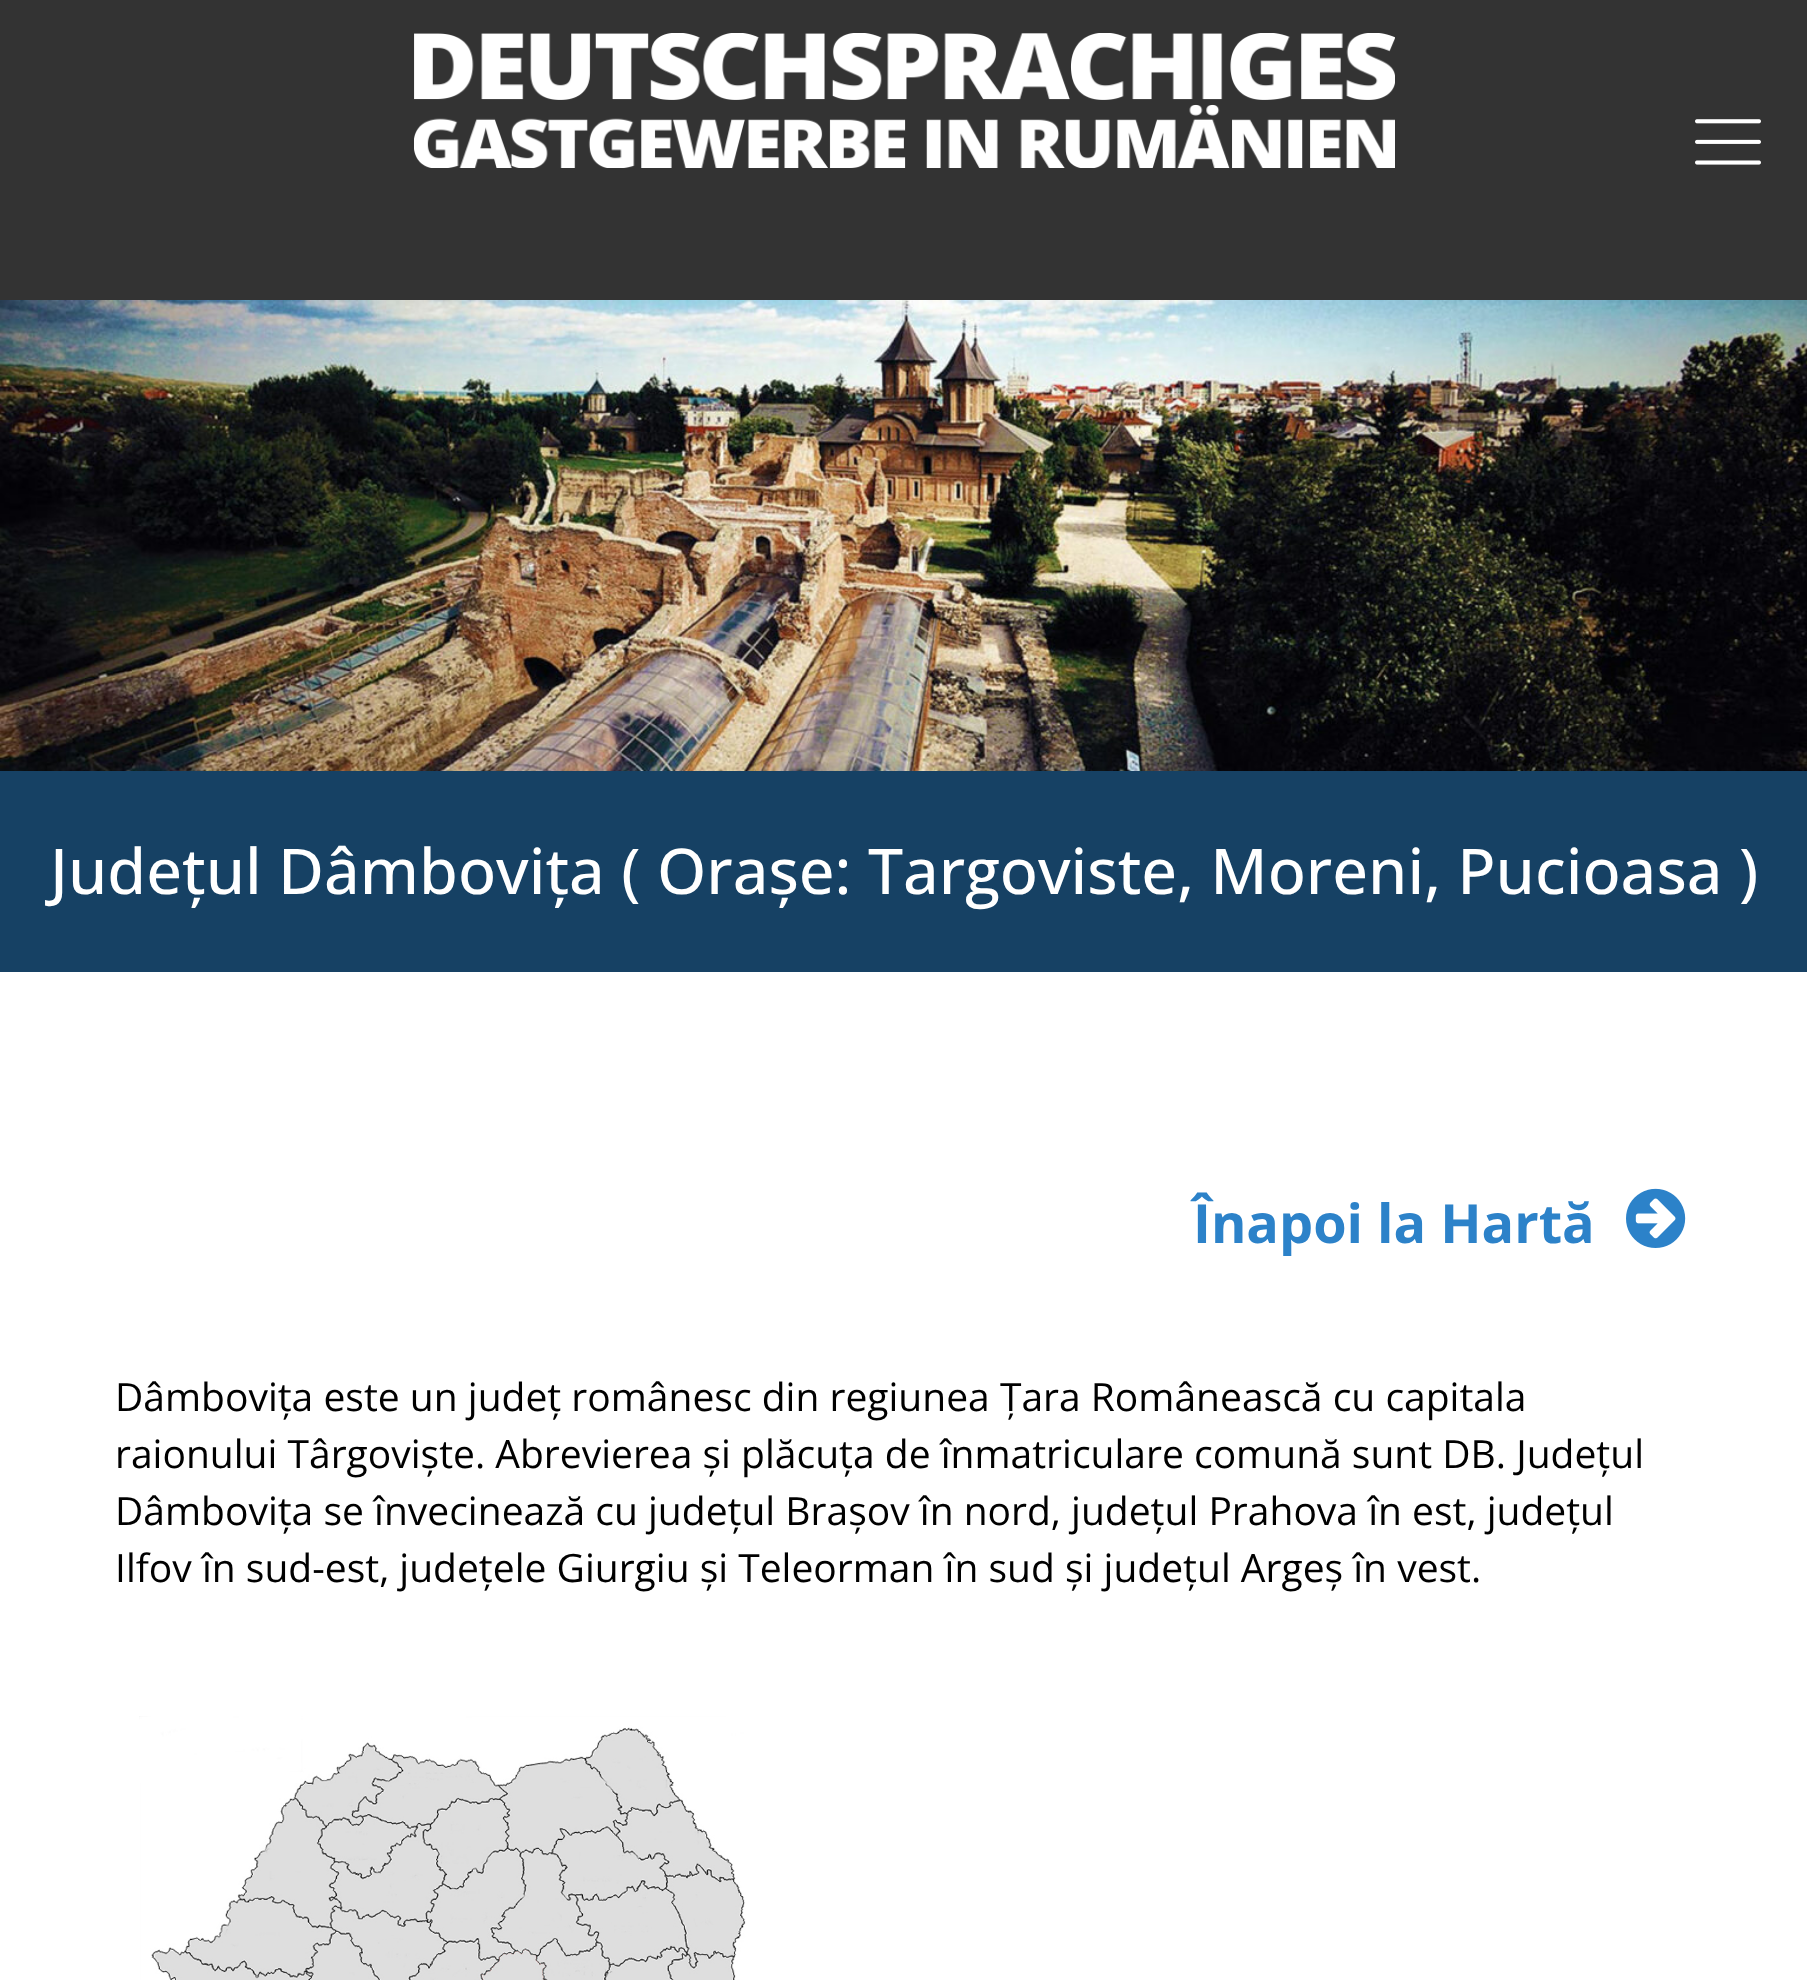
(async () => {
  const canvas = document.querySelector("canvas");
  canvas.width = 1807;
  canvas.height = 1980;
  const ctx = canvas.getContext("2d");
  ctx.miterLimit = 4;
  ctx.fontKerning = "normal";
  async function loadImage(src) {
    const img = new Image();
    img.src = src;
    await img.decode();
    return img;
  }

  ctx.fillStyle = "#ffffff";
  ctx.fillRect(0, 0, 1807, 1980);
  ctx.fillStyle = "#333333";
  ctx.fillRect(0, 0, 1807, 300);
  ctx.drawImage(await loadImage("img/1.png"), 414, 33, 981, 135);
  ctx.drawImage(await loadImage("img/2.png"), 1695, 119, 66, 46);
  ctx.drawImage(await loadImage("img/3.png"), 0, 300, 1807, 471);
  ctx.fillStyle = "#164164";
  ctx.fillRect(0, 771, 1807, 201);
  ctx.drawImage(await loadImage("img/4.png"), 1626, 1188, 60, 60);
  ctx.drawImage(await loadImage("img/5.png"), 139, 1716, 607, 264);
  ctx.font = "500 63px Open Sans";
  ctx.fillStyle = "#ffffff";
  ctx.fillText("Județul Dâmbovița ( Orașe: Targoviste, Moreni, Pucioasa )", 50, 894);
  ctx.font = "bold 54px Open Sans";
  ctx.fillStyle = "#2c82c9";
  ctx.fillText("Înapoi la Hartă", 1193, 1243);
  ctx.font = "39px Open Sans";
  ctx.fillStyle = "#000000";
  for (const [text, x, y] of [
    ["Dâmbovița este un județ românesc din regiunea Țara Românească cu capitala", 115, 1411],
    ["raionului Târgoviște. Abrevierea și plăcuța de înmatriculare comună sunt DB. Județul", 115, 1468],
    ["Dâmbovița se învecinează cu județul Brașov în nord, județul Prahova în est, județul", 115, 1525],
    ["Ilfov în sud-est, județele Giurgiu și Teleorman în sud și județul Argeș în vest.", 115, 1582],
  ]) {
    ctx.fillText(text, x, y);
  }
})();
